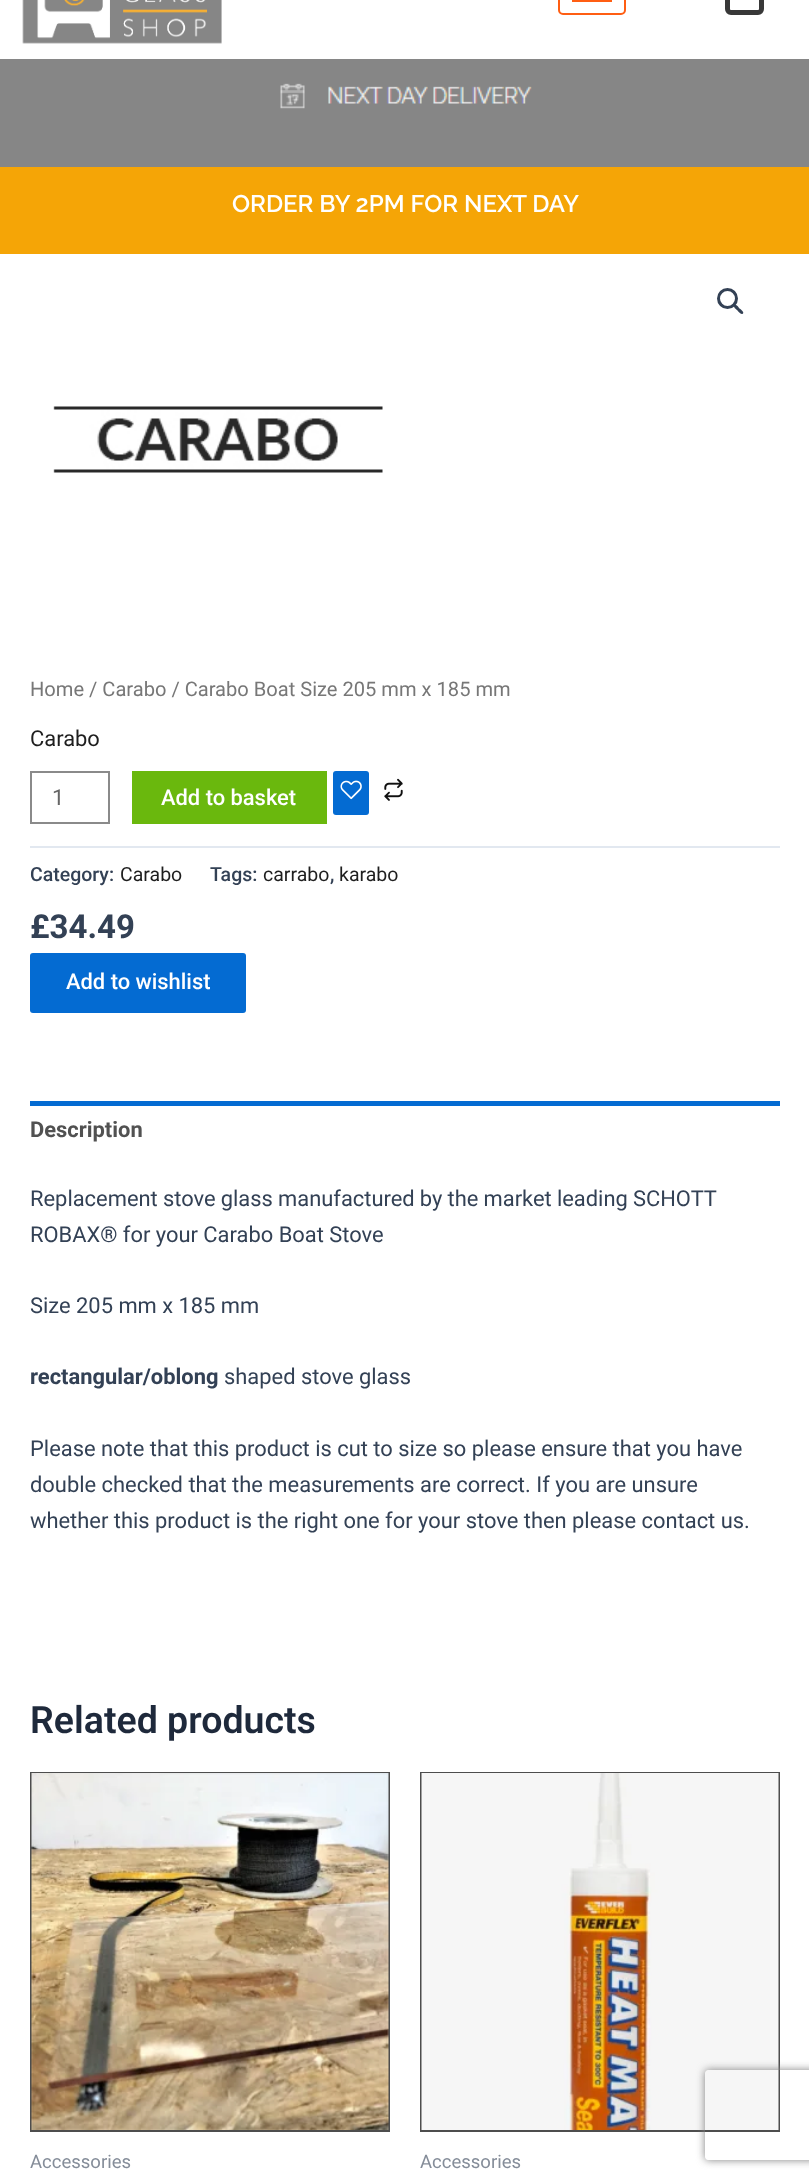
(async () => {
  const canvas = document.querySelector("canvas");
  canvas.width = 809;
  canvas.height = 2181;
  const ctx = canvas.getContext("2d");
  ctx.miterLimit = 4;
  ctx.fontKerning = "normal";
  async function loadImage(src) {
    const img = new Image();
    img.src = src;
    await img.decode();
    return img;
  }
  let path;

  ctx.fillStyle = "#ffffff";
  ctx.fillRect(0, 0, 809, 2181);
  ctx.drawImage(await loadImage("img/1.png"), 22, 0, 200, 44);
  ctx.beginPath();
  ctx.roundRect(559, -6, 66, 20, 4);
  ctx.strokeStyle = "#ff5e13";
  ctx.lineWidth = 2;
  ctx.stroke();
  ctx.fillStyle = "#ff5e13";
  ctx.fillRect(572, 0, 40, 2);
  path = new Path2D("M727.5-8.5H761.5V9C761.5 11 760 12.5 758 12.5H731C729 12.5 727.5 11 727.5 9Z");
  ctx.strokeStyle = "#383838";
  ctx.lineWidth = 5;
  ctx.stroke(path);
  ctx.fillStyle = "#868686";
  ctx.fillRect(0, 59, 809, 108);
  ctx.drawImage(await loadImage("img/2.png"), 280, 83, 252, 26);
  ctx.fillStyle = "#f5a506";
  ctx.fillRect(0, 167, 809, 87);
  ctx.beginPath();
  ctx.arc(727.5, 298.5, 9, 0, Math.PI * 2);
  ctx.strokeStyle = "#334155";
  ctx.lineWidth = 3;
  ctx.stroke();
  ctx.fillStyle = "#334155";
  path = new Path2D("M734.5 305C736 303.5 739 307.5 739.5 308.5C740.5 309 744.5 312 743 313.5C741 315.5 738.5 311.5 737.5 310.5C736.5 309.5 732.5 307 734.5 305Z");
  ctx.fill(path);
  ctx.drawImage(await loadImage("img/3.png"), 53, 406, 330, 67);
  ctx.strokeStyle = "#8a8a8a";
  ctx.lineWidth = 2;
  ctx.strokeRect(31, 772, 78, 51);
  ctx.fillStyle = "#6ab80d";
  ctx.fillRect(132, 771, 195, 53);
  ctx.fillStyle = "#046bd2";
  ctx.beginPath();
  ctx.roundRect(333, 771, 36, 44, 3);
  ctx.fill();
  ctx.drawImage(await loadImage("img/4.png"), 340, 780, 22, 20);
  ctx.drawImage(await loadImage("img/5.png"), 384, 778, 19, 23);
  ctx.fillStyle = "#e2e8f0";
  ctx.fillRect(30, 846, 750, 2);
  ctx.fillStyle = "#046bd2";
  ctx.beginPath();
  ctx.roundRect(30, 953, 216, 60, 3);
  ctx.fill();
  ctx.fillRect(30, 1101, 750, 5);
  ctx.strokeStyle = "#4d4d4d";
  ctx.strokeRect(31, 1773, 358, 358);
  ctx.drawImage(await loadImage("img/6.png"), 31, 1773, 358, 357);
  ctx.strokeRect(421, 1773, 358, 358);
  ctx.drawImage(await loadImage("img/7.png"), 421, 1773, 358, 357);
  ctx.save();
  path = new Path2D("M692 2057H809V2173H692ZM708 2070H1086C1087.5 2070 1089 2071.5 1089 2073V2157C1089 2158.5 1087.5 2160 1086 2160H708C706.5 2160 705 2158.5 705 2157V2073C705 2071.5 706.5 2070 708 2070Z");
  ctx.clip(path, "evenodd");
  ctx.fillStyle = "#808080";
  ctx.filter = "blur(4px)";
  ctx.beginPath();
  ctx.roundRect(705, 2070, 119, 90, 3);
  ctx.fill();
  ctx.filter = "none";
  ctx.restore();
  ctx.font = "600 24px Raleway";
  ctx.fillStyle = "#ffffff";
  ctx.fillText("ORDER BY 2PM FOR NEXT DAY", 232, 212);
  ctx.font = "20.1px Roboto";
  ctx.fillStyle = "#777777";
  ctx.fillText("Home / Carabo / Carabo Boat Size 205 mm x 185 mm", 30, 696);
  ctx.font = "21.9px Roboto";
  ctx.fillStyle = "#1e1e1e";
  ctx.fillText("Carabo", 30, 746);
  ctx.fillStyle = "#666666";
  ctx.fillText("1", 52, 805);
  ctx.font = "500 21.9px Roboto";
  ctx.fillStyle = "#ffffff";
  ctx.fillText("Add to basket", 161, 805);
  ctx.font = "500 19.5px Roboto";
  ctx.fillStyle = "#334155";
  ctx.fillText("Category:", 30, 881);
  ctx.font = "19.5px Roboto";
  ctx.fillStyle = "#1e1e1e";
  ctx.fillText("Carabo", 120, 881);
  ctx.font = "500 19.5px Roboto";
  ctx.fillStyle = "#334155";
  ctx.fillText("Tags:", 210, 881);
  ctx.font = "19.5px Roboto";
  ctx.fillStyle = "#1e1e1e";
  ctx.fillText("carrabo", 263, 881);
  ctx.font = "500 19.5px Roboto";
  ctx.fillStyle = "#334155";
  ctx.fillText(",", 330, 881);
  ctx.font = "19.5px Roboto";
  ctx.fillStyle = "#1e1e1e";
  ctx.fillText("karabo", 339, 881);
  ctx.font = "bold 33px Roboto";
  ctx.fillStyle = "#334155";
  ctx.fillText("£34.49", 30, 938);
  ctx.font = "500 21.9px Roboto";
  ctx.fillStyle = "#ffffff";
  ctx.fillText("Add to wishlist", 66, 989);
  ctx.font = "bold 21.9px Roboto";
  ctx.fillStyle = "#515151";
  ctx.fillText("Description", 30, 1137);
  ctx.wordSpacing = "-0.25px";
  ctx.font = "21.9px Roboto";
  ctx.fillStyle = "#334155";
  ctx.fillText("Replacement stove glass manufactured by the market leading SCHOTT", 30, 1206);
  ctx.wordSpacing = "0px";
  ctx.fillText("ROBAX® for your Carabo Boat Stove", 30, 1242);
  ctx.fillText("Size 205 mm x 185 mm", 30, 1313);
  ctx.font = "bold 21.9px Roboto";
  ctx.fillText("rectangular/oblong", 30, 1384);
  ctx.font = "21.9px Roboto";
  for (const [text, x, y] of [
    ["shaped stove glass", 224, 1384],
    ["Please note that this product is cut to size so please ensure that you have", 30, 1456],
    ["double checked that the measurements are correct. If you are unsure", 30, 1492],
    ["whether this product is the right one for your stove then please contact us.", 30, 1528],
  ]) {
    ctx.fillText(text, x, y);
  }
  ctx.font = "600 37.5px Roboto";
  ctx.fillStyle = "#1e293b";
  ctx.fillText("Related products", 30, 1733);
  ctx.font = "18.5px Roboto";
  ctx.fillStyle = "#858d99";
  ctx.fillText("Accessories", 30, 2168);
  ctx.fillText("Accessories", 420, 2168);
})();
